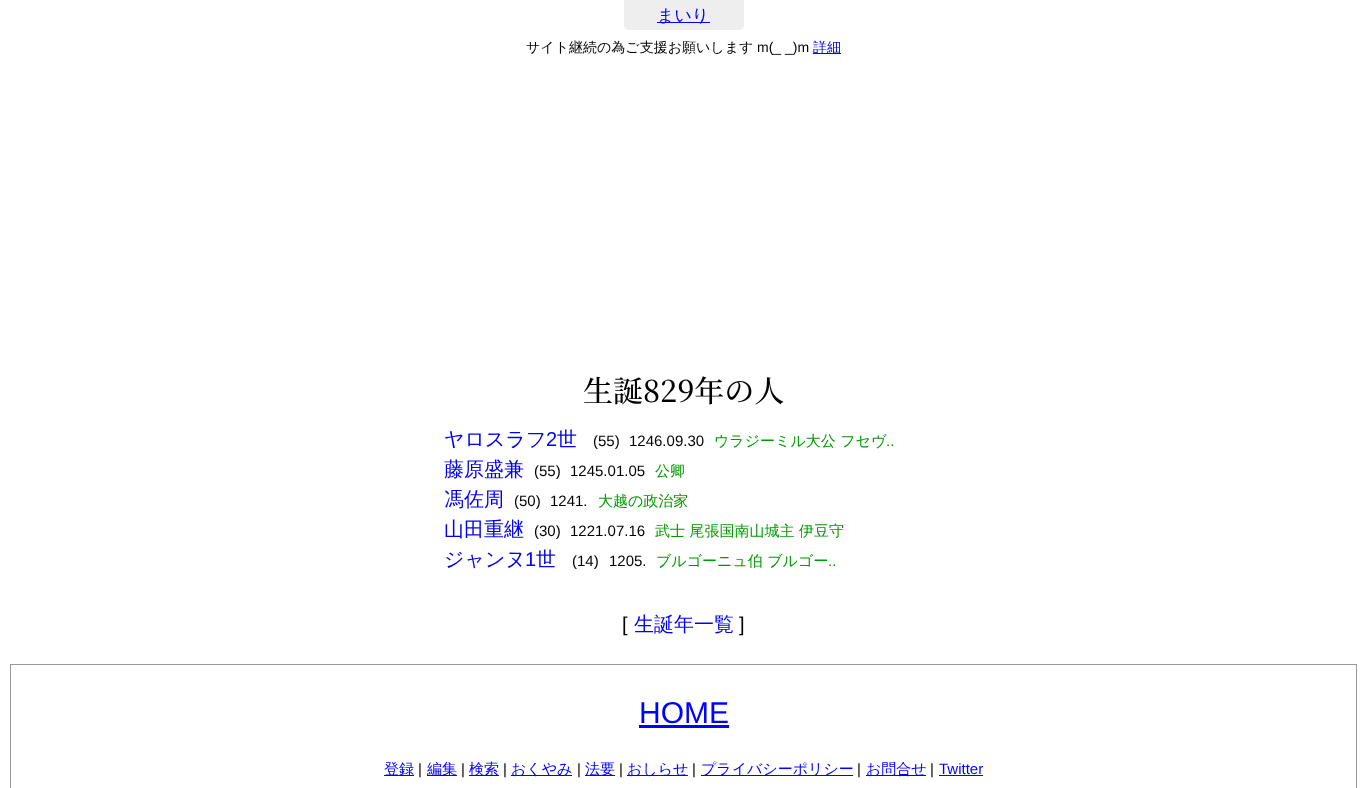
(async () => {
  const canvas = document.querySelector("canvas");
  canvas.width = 1367;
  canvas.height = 788;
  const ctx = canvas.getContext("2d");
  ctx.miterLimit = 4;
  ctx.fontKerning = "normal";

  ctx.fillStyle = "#ffffff";
  ctx.fillRect(0, 0, 1367, 788);
  ctx.fillStyle = "#eeeeee";
  ctx.beginPath();
  ctx.roundRect(624, 0, 120, 30, [0, 0, 5, 5]);
  ctx.fill();
  ctx.fillStyle = "#0000ff";
  ctx.fillRect(657, 22, 53, 1);
  ctx.fillStyle = "#0000ee";
  ctx.fillRect(813, 53, 28, 1);
  ctx.strokeStyle = "#999999";
  ctx.strokeRect(10.5, 664.5, 1346, 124);
  for (const [x, y, w, h, color] of [
    [639, 725, 90, 3, "#0000ff"],
    [384, 775, 30, 1, "#0000ff"],
    [427, 775, 30, 1, "#0000ff"],
    [469, 775, 30, 1, "#0000ff"],
    [511, 775, 61, 1, "#0000ff"],
    [585, 775, 30, 1, "#0000ff"],
    [627, 775, 61, 1, "#0000ff"],
    [701, 775, 152, 1, "#0000ff"],
    [866, 775, 60, 1, "#0000ff"],
    [939, 775, 44, 1, "#0000ff"],
  ]) {
    ctx.fillStyle = color;
    ctx.fillRect(x, y, w, h);
  }
  ctx.font = "500 17px WenQuanYi Zen Hei";
  ctx.fillText("まいり", 657, 21);
  ctx.font = "500 14px WenQuanYi Zen Hei";
  ctx.fillStyle = "#000000";
  ctx.fillText("サイト継続の為ご支援お願いします", 526, 52);
  ctx.font = "14px Liberation Sans";
  ctx.fillText("m(_ _)m", 757, 52);
  ctx.font = "500 14px WenQuanYi Zen Hei";
  ctx.fillStyle = "#0000ee";
  ctx.fillText("詳細", 813, 52);
  ctx.font = "200 30px Noto Serif JP";
  ctx.fillStyle = "#000000";
  ctx.fillText("生誕829年の人", 583, 402);
  ctx.font = "500 20px WenQuanYi Zen Hei";
  ctx.fillStyle = "#0000ee";
  ctx.fillText("ヤロスラフ", 444, 446);
  ctx.font = "20px Liberation Sans";
  ctx.fillText("2", 546, 446);
  ctx.font = "500 20px WenQuanYi Zen Hei";
  ctx.fillText("世", 557, 446);
  ctx.font = "15px Liberation Sans";
  ctx.fillStyle = "#000000";
  ctx.fillText("(55)", 593, 446);
  ctx.fillText("1246.09.30", 629, 446);
  ctx.font = "500 15px WenQuanYi Zen Hei";
  ctx.fillStyle = "#009900";
  ctx.fillText("ウラジーミル大公 フセヴ", 714, 446);
  ctx.font = "15px Liberation Sans";
  ctx.fillText("..", 886, 446);
  ctx.font = "500 20px WenQuanYi Zen Hei";
  ctx.fillStyle = "#0000ee";
  ctx.fillText("藤原盛兼", 444, 476);
  ctx.font = "15px Liberation Sans";
  ctx.fillStyle = "#000000";
  ctx.fillText("(55)", 534, 476);
  ctx.fillText("1245.01.05", 570, 476);
  ctx.font = "500 15px WenQuanYi Zen Hei";
  ctx.fillStyle = "#009900";
  ctx.fillText("公卿", 655, 476);
  ctx.font = "500 20px WenQuanYi Zen Hei";
  ctx.fillStyle = "#0000ee";
  ctx.fillText("馮佐周", 444, 506);
  ctx.font = "15px Liberation Sans";
  ctx.fillStyle = "#000000";
  ctx.fillText("(50)", 514, 506);
  ctx.fillText("1241.", 550, 506);
  ctx.font = "500 15px WenQuanYi Zen Hei";
  ctx.fillStyle = "#009900";
  ctx.fillText("大越の政治家", 598, 506);
  ctx.font = "500 20px WenQuanYi Zen Hei";
  ctx.fillStyle = "#0000ee";
  ctx.fillText("山田重継", 444, 536);
  ctx.font = "15px Liberation Sans";
  ctx.fillStyle = "#000000";
  ctx.fillText("(30)", 534, 536);
  ctx.fillText("1221.07.16", 570, 536);
  ctx.font = "500 15px WenQuanYi Zen Hei";
  ctx.fillStyle = "#009900";
  ctx.fillText("武士 尾張国南山城主 伊豆守", 655, 536);
  ctx.font = "500 20px WenQuanYi Zen Hei";
  ctx.fillStyle = "#0000ee";
  ctx.fillText("ジャンヌ", 444, 566);
  ctx.font = "20px Liberation Sans";
  ctx.fillText("1", 525, 566);
  ctx.font = "500 20px WenQuanYi Zen Hei";
  ctx.fillText("世", 536, 566);
  ctx.font = "15px Liberation Sans";
  ctx.fillStyle = "#000000";
  ctx.fillText("(14)", 572, 566);
  ctx.fillText("1205.", 609, 566);
  ctx.font = "500 15px WenQuanYi Zen Hei";
  ctx.fillStyle = "#009900";
  ctx.fillText("ブルゴーニュ伯 ブルゴー", 656, 566);
  ctx.font = "15px Liberation Sans";
  ctx.fillText("..", 828, 566);
  ctx.font = "20px Liberation Sans";
  ctx.fillStyle = "#000000";
  ctx.fillText("[", 622, 631);
  ctx.font = "500 20px WenQuanYi Zen Hei";
  ctx.fillStyle = "#0000ee";
  ctx.fillText("生誕年一覧", 634, 631);
  ctx.font = "20px Liberation Sans";
  ctx.fillStyle = "#000000";
  ctx.fillText("]", 739, 631);
  ctx.font = "30px Liberation Sans";
  ctx.fillStyle = "#0000ff";
  ctx.fillText("HOME", 639, 723);
  ctx.font = "500 15px WenQuanYi Zen Hei";
  ctx.fillText("登録", 384, 774);
  ctx.font = "15px Liberation Sans";
  ctx.fillStyle = "#000000";
  ctx.fillText("|", 418, 774);
  ctx.font = "500 15px WenQuanYi Zen Hei";
  ctx.fillStyle = "#0000ff";
  ctx.fillText("編集", 427, 774);
  ctx.font = "15px Liberation Sans";
  ctx.fillStyle = "#000000";
  ctx.fillText("|", 461, 774);
  ctx.font = "500 15px WenQuanYi Zen Hei";
  ctx.fillStyle = "#0000ff";
  ctx.fillText("検索", 469, 774);
  ctx.font = "15px Liberation Sans";
  ctx.fillStyle = "#000000";
  ctx.fillText("|", 503, 774);
  ctx.font = "500 15px WenQuanYi Zen Hei";
  ctx.fillStyle = "#0000ff";
  ctx.fillText("おくやみ", 511, 774);
  ctx.font = "15px Liberation Sans";
  ctx.fillStyle = "#000000";
  ctx.fillText("|", 577, 774);
  ctx.font = "500 15px WenQuanYi Zen Hei";
  ctx.fillStyle = "#0000ff";
  ctx.fillText("法要", 585, 774);
  ctx.font = "15px Liberation Sans";
  ctx.fillStyle = "#000000";
  ctx.fillText("|", 619, 774);
  ctx.font = "500 15px WenQuanYi Zen Hei";
  ctx.fillStyle = "#0000ff";
  ctx.fillText("おしらせ", 627, 774);
  ctx.font = "15px Liberation Sans";
  ctx.fillStyle = "#000000";
  ctx.fillText("|", 692, 774);
  ctx.font = "500 15px WenQuanYi Zen Hei";
  ctx.fillStyle = "#0000ff";
  ctx.fillText("プライバシーポリシー", 701, 774);
  ctx.font = "15px Liberation Sans";
  ctx.fillStyle = "#000000";
  ctx.fillText("|", 857, 774);
  ctx.font = "500 15px WenQuanYi Zen Hei";
  ctx.fillStyle = "#0000ff";
  ctx.fillText("お問合せ", 866, 774);
  ctx.font = "15px Liberation Sans";
  ctx.fillStyle = "#000000";
  ctx.fillText("|", 930, 774);
  ctx.fillStyle = "#0000ff";
  ctx.fillText("Twitter", 939, 774);
})();
